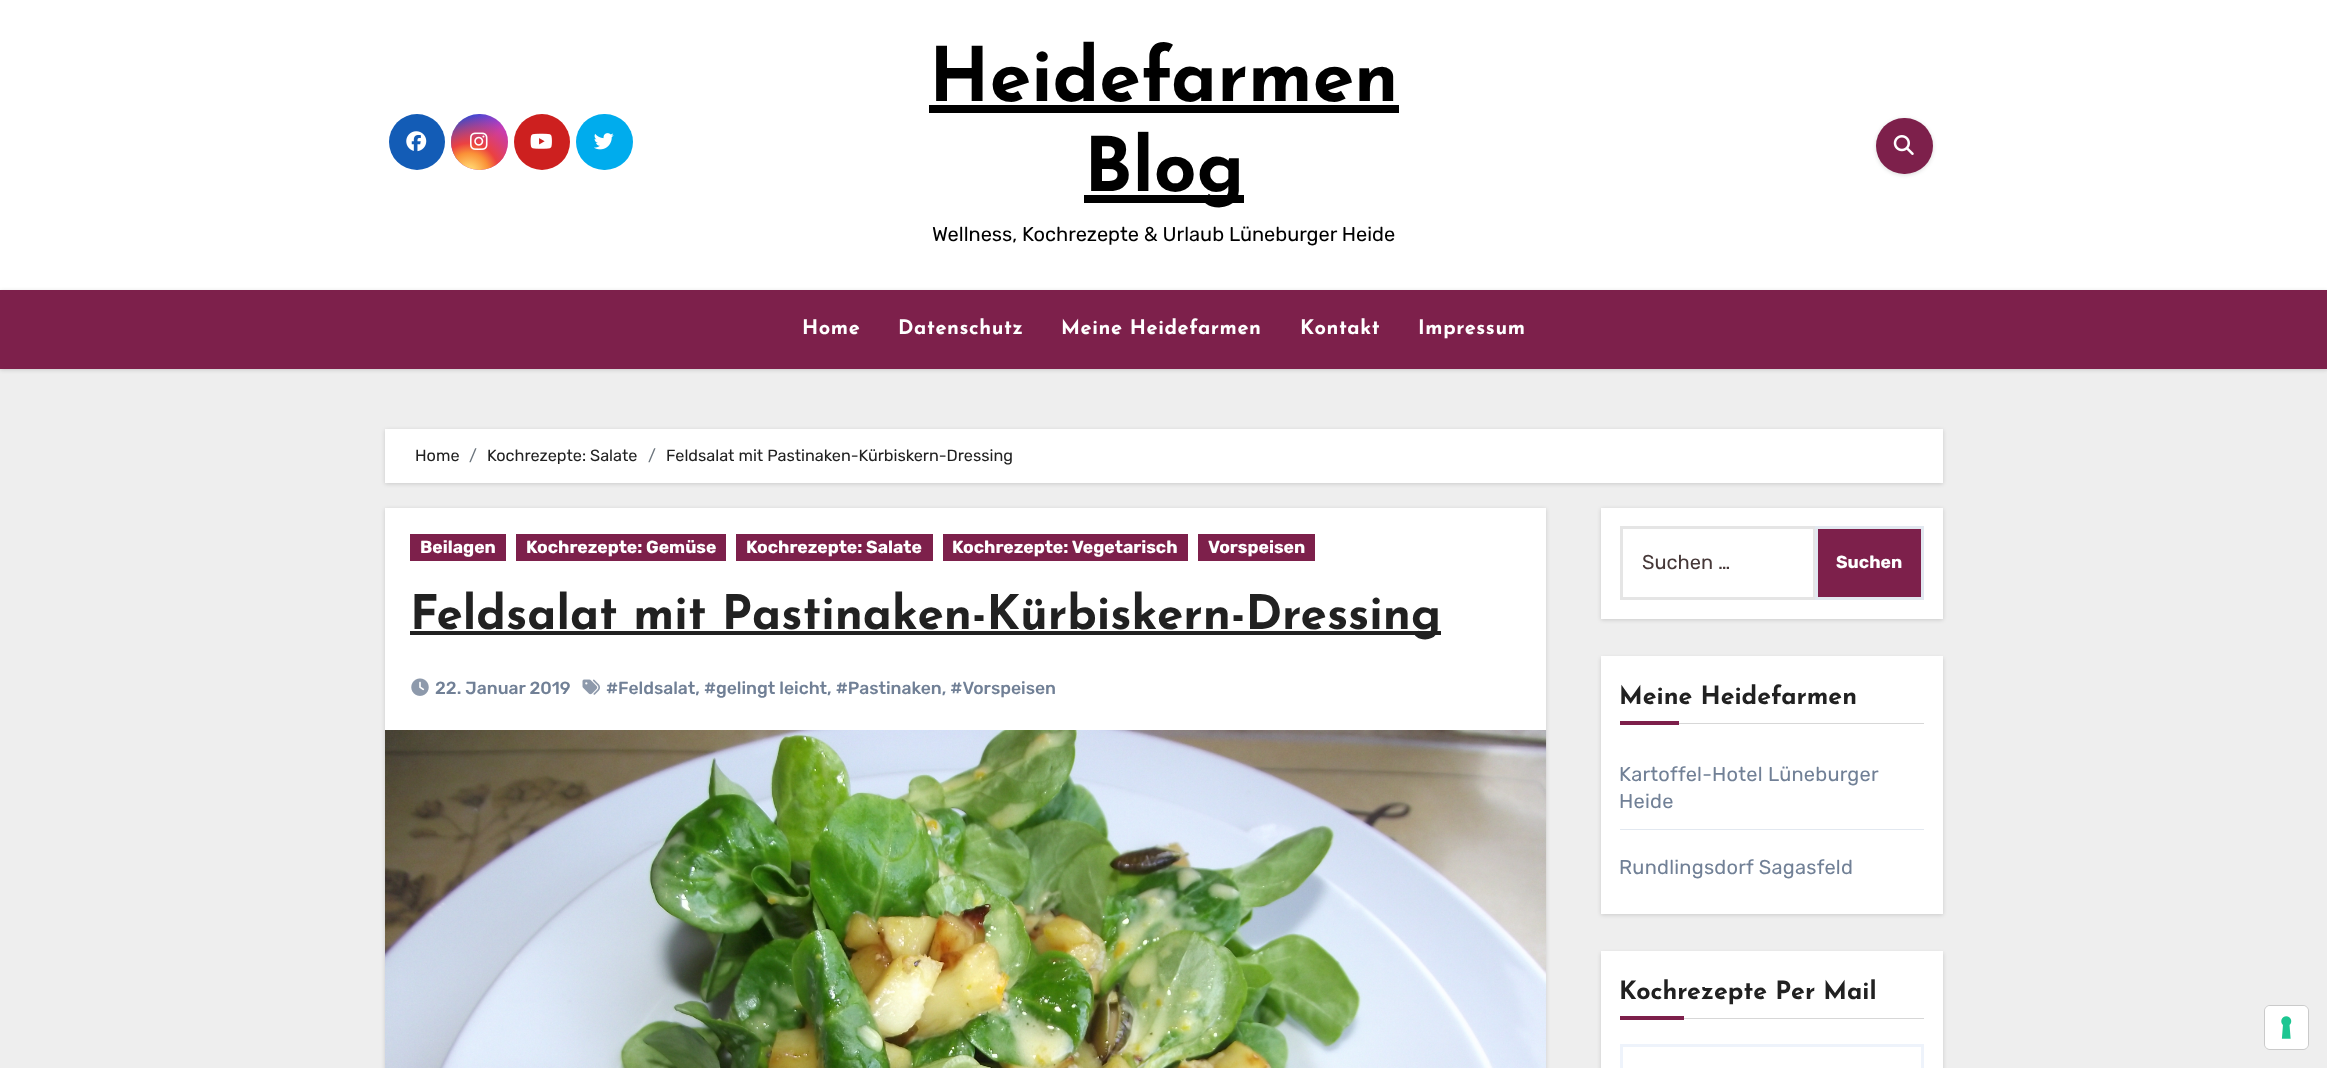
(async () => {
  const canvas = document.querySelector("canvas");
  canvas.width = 2327;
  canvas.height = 1068;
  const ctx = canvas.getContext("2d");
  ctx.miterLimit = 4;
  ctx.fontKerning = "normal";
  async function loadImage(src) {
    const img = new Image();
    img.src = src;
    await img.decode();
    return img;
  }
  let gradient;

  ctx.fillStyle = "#eeeeee";
  ctx.fillRect(0, 0, 2327, 1068);
  ctx.fillStyle = "#ffffff";
  ctx.fillRect(0, 0, 2327, 290);
  ctx.fillStyle = "#135cb6";
  ctx.beginPath();
  ctx.arc(417, 142, 28, 0, Math.PI * 2);
  ctx.fill();
  ctx.drawImage(await loadImage("img/1.png"), 406, 131, 21, 21);
  gradient = ctx.createLinearGradient(451, 114, 508, 170);
  gradient.addColorStop(0.12, "#234bd7");
  gradient.addColorStop(0.58, "#c33cbe");
  ctx.fillStyle = gradient;
  ctx.beginPath();
  ctx.roundRect(451, 114, 57, 56, 28);
  ctx.fill();
  gradient = ctx.createRadialGradient(469, 173, 0, 469, 173, 71);
  gradient.addColorStop(0, "#ffe17d");
  gradient.addColorStop(0.1, "#ffcd69");
  gradient.addColorStop(0.28, "#fa9137");
  gradient.addColorStop(0.42, "#eb4141");
  gradient.addColorStop(0.82, "rgba(235, 65, 65, 0)");
  ctx.fillStyle = gradient;
  ctx.beginPath();
  ctx.roundRect(451, 114, 57, 56, 28);
  ctx.fill();
  ctx.drawImage(await loadImage("img/2.png"), 470, 132, 18, 18);
  ctx.fillStyle = "#cd201f";
  ctx.beginPath();
  ctx.arc(542, 142, 28, 0, Math.PI * 2);
  ctx.fill();
  ctx.drawImage(await loadImage("img/3.png"), 530, 133, 22, 16);
  ctx.fillStyle = "#00aced";
  ctx.beginPath();
  ctx.roundRect(576, 114, 57, 56, 28);
  ctx.fill();
  ctx.drawImage(await loadImage("img/4.png"), 594, 133, 20, 17);
  ctx.fillStyle = "#000000";
  ctx.fillRect(929, 105, 470, 8);
  ctx.fillRect(1084, 195, 160, 8);
  ctx.fillStyle = "rgba(0, 0, 0, 0.15)";
  ctx.filter = "blur(2px)";
  ctx.beginPath();
  ctx.roundRect(1876, 119, 57, 56, 28);
  ctx.fill();
  ctx.filter = "none";
  ctx.fillStyle = "#7d204b";
  ctx.beginPath();
  ctx.roundRect(1876, 118, 57, 56, 28);
  ctx.fill();
  ctx.drawImage(await loadImage("img/5.png"), 1893, 135, 21, 20);
  ctx.fillStyle = "rgba(0, 0, 0, 0.15)";
  ctx.filter = "blur(2px)";
  ctx.beginPath();
  ctx.rect(0, 291, 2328, 79);
  ctx.fill();
  ctx.filter = "none";
  ctx.fillStyle = "#7d204b";
  ctx.fillRect(0, 290, 2327, 79);
  ctx.fillStyle = "rgba(0, 0, 0, 0.15)";
  ctx.filter = "blur(2px)";
  ctx.beginPath();
  ctx.rect(385, 430, 1558, 54);
  ctx.fill();
  ctx.filter = "none";
  ctx.fillStyle = "#ffffff";
  ctx.fillRect(385, 429, 1558, 54);
  ctx.fillStyle = "rgba(0, 0, 0, 0.15)";
  ctx.filter = "blur(2px)";
  ctx.beginPath();
  ctx.rect(385, 509, 1161, 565);
  ctx.fill();
  ctx.filter = "none";
  for (const [x, y, w, h, color] of [
    [385, 508, 1161, 222, "#ffffff"],
    [410, 534, 96, 27, "#7d204b"],
    [516, 534, 210, 27, "#7d204b"],
    [736, 534, 197, 27, "#7d204b"],
    [943, 534, 245, 27, "#7d204b"],
    [1198, 534, 117, 27, "#7d204b"],
    [410, 631, 1031, 4, "#212121"],
  ]) {
    ctx.fillStyle = color;
    ctx.fillRect(x, y, w, h);
  }
  ctx.drawImage(await loadImage("img/6.png"), 411, 678, 18, 18);
  ctx.drawImage(await loadImage("img/7.png"), 582, 679, 18, 16);
  ctx.drawImage(await loadImage("img/8.png"), 385, 730, 1162, 338);
  ctx.fillStyle = "rgba(0, 0, 0, 0.15)";
  ctx.filter = "blur(2px)";
  ctx.beginPath();
  ctx.rect(1601, 509, 342, 111);
  ctx.fill();
  ctx.filter = "none";
  ctx.fillStyle = "#ffffff";
  ctx.fillRect(1601, 508, 342, 111);
  ctx.strokeStyle = "#e5e5e5";
  ctx.lineWidth = 3;
  ctx.strokeRect(1621.5, 527.5, 193, 71);
  ctx.fillStyle = "#7d204b";
  ctx.beginPath();
  ctx.rect(1816.5, 527.5, 106, 71);
  ctx.fill();
  ctx.strokeStyle = "#e2e8f0";
  ctx.stroke();
  ctx.fillStyle = "rgba(0, 0, 0, 0.15)";
  ctx.filter = "blur(2px)";
  ctx.beginPath();
  ctx.rect(1601, 658, 342, 257);
  ctx.fill();
  ctx.filter = "none";
  for (const [x, y, w, h, color] of [
    [1601, 656, 342, 258, "#ffffff"],
    [1679, 723, 245, 1, "#d7d7d7"],
    [1620, 721, 59, 4, "#7d204b"],
    [1620, 829, 304, 1, "#e2e8f0"],
  ]) {
    ctx.fillStyle = color;
    ctx.fillRect(x, y, w, h);
  }
  ctx.fillStyle = "rgba(0, 0, 0, 0.15)";
  ctx.filter = "blur(2px)";
  ctx.beginPath();
  ctx.rect(1601, 953, 342, 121);
  ctx.fill();
  ctx.filter = "none";
  for (const [x, y, w, h, color] of [
    [1601, 951, 342, 117, "#ffffff"],
    [1684, 1018, 240, 1, "#d7d7d7"],
    [1620, 1016, 64, 4, "#7d204b"],
  ]) {
    ctx.fillStyle = color;
    ctx.fillRect(x, y, w, h);
  }
  ctx.strokeStyle = "#eef3fb";
  ctx.strokeRect(1621.5, 1045.5, 301, 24);
  ctx.beginPath();
  ctx.roundRect(2264.5, 1005.5, 44, 44, 5.5);
  ctx.strokeStyle = "#cacaca";
  ctx.lineWidth = 1;
  ctx.stroke();
  ctx.fillStyle = "#ffffff";
  ctx.beginPath();
  ctx.roundRect(2265, 1006, 43, 43, 5);
  ctx.fill();
  ctx.drawImage(await loadImage("img/9.png"), 2281, 1016, 11, 23);
  ctx.font = "bold 75px Josefin Sans";
  ctx.fillStyle = "#000000";
  ctx.fillText("Heidefarmen", 929, 101);
  ctx.fillText("Blog", 1084, 191);
  ctx.font = "300 20px Rubik";
  ctx.fillText("Wellness, Kochrezepte & Urlaub Lüneburger Heide", 932, 241);
  ctx.letterSpacing = "0.6px";
  ctx.font = "bold 20px Josefin Sans";
  ctx.fillStyle = "#ffffff";
  for (const [text, x, y] of [
    ["Home", 802, 334],
    ["Datenschutz", 898, 334],
    ["Meine Heidefarmen", 1061, 334],
    ["Kontakt", 1300, 334],
    ["Impressum", 1418, 334],
  ]) {
    ctx.fillText(text, x, y);
  }
  ctx.letterSpacing = "0px";
  ctx.font = "300 16.25px Rubik";
  ctx.fillStyle = "#212121";
  ctx.fillText("Home", 415, 461);
  ctx.fillStyle = "#6c757d";
  ctx.fillText("/", 469, 461);
  ctx.fillStyle = "#212121";
  ctx.fillText("Kochrezepte: Salate", 487, 461);
  ctx.fillStyle = "#6c757d";
  ctx.fillText("/", 648, 461);
  ctx.fillStyle = "#212121";
  ctx.fillText("Feldsalat mit Pastinaken-Kürbiskern-Dressing", 666, 461);
  ctx.font = "bold 17.5px Rubik";
  ctx.fillStyle = "#ffffff";
  for (const [text, x, y] of [
    ["Beilagen", 420, 553],
    ["Kochrezepte: Gemüse", 526, 553],
    ["Kochrezepte: Salate", 746, 553],
    ["Kochrezepte: Vegetarisch", 952, 553],
    ["Vorspeisen", 1208, 553],
  ]) {
    ctx.fillText(text, x, y);
  }
  ctx.font = "bold 47.5px Josefin Sans";
  ctx.fillStyle = "#212121";
  ctx.fillText("Feldsalat mit Pastinaken-Kürbiskern-Dressing", 410, 629);
  ctx.font = "500 17.5px Rubik";
  ctx.fillStyle = "#718096";
  ctx.fillText("22. Januar 2019", 435, 694);
  ctx.fillText("#Feldsalat, #gelingt leicht, #Pastinaken, #Vorspeisen", 606, 694);
  ctx.font = "300 20px Rubik";
  ctx.fillStyle = "#463838";
  ctx.fillText("Suchen …", 1642, 569);
  ctx.font = "bold 17.5px Rubik";
  ctx.fillStyle = "#ffffff";
  ctx.fillText("Suchen", 1836, 568);
  ctx.font = "bold 25px Josefin Sans";
  ctx.fillStyle = "#212121";
  ctx.fillText("Meine Heidefarmen", 1619, 704);
  ctx.letterSpacing = "0.25px";
  ctx.font = "300 20px Rubik";
  ctx.fillStyle = "#718096";
  for (const [text, x, y] of [
    ["Kartoffel-Hotel Lüneburger", 1619, 781],
    ["Heide", 1619, 808],
    ["Rundlingsdorf Sagasfeld", 1619, 874],
  ]) {
    ctx.fillText(text, x, y);
  }
  ctx.letterSpacing = "0px";
  ctx.font = "bold 25px Josefin Sans";
  ctx.fillStyle = "#212121";
  ctx.fillText("Kochrezepte Per Mail", 1619, 999);
})();
